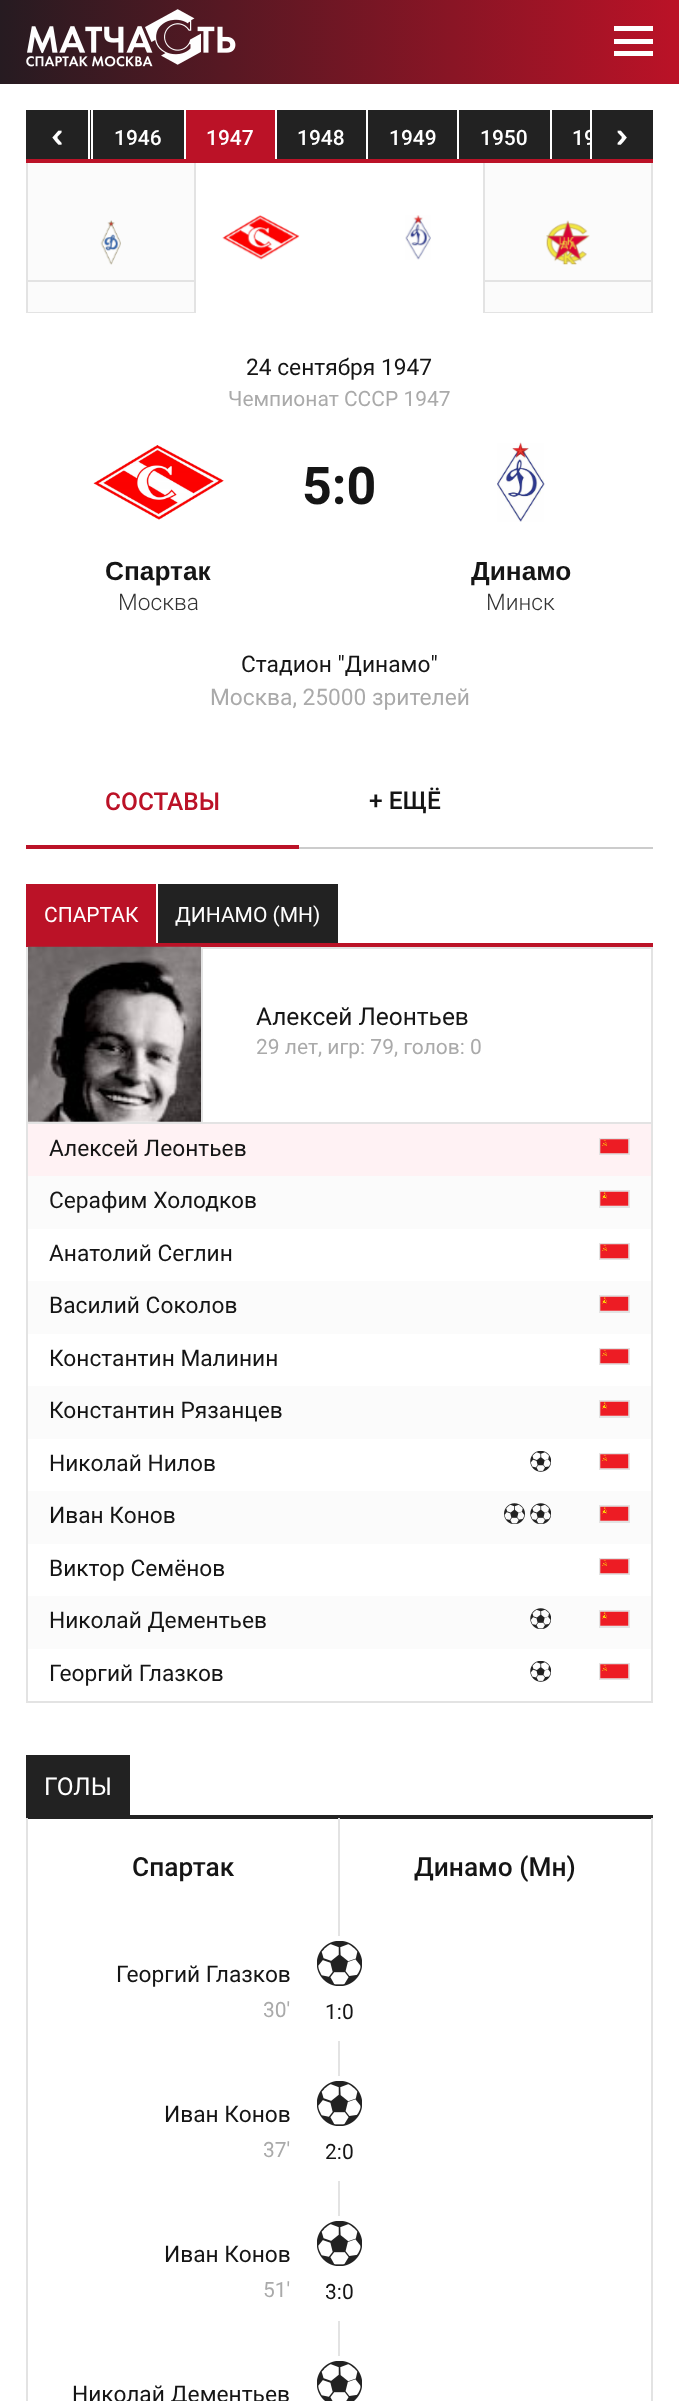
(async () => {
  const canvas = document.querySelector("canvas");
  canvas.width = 679;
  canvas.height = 2401;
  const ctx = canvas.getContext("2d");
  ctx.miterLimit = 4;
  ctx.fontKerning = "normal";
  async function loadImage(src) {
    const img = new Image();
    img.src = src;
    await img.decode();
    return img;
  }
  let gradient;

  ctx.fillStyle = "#ffffff";
  ctx.fillRect(0, 0, 679, 2401);
  gradient = ctx.createLinearGradient(0, 42, 679, 42);
  gradient.addColorStop(0, "#261b21");
  gradient.addColorStop(1, "#bb1227");
  ctx.fillStyle = gradient;
  ctx.fillRect(0, 0, 679, 84);
  ctx.drawImage(await loadImage("img/1.png"), 26, 9, 210, 58);
  for (const [x, y, w, h, color] of [
    [614, 39, 39, 5, "#ffffff"],
    [614, 26, 39, 5, "#ffffff"],
    [614, 51, 39, 5, "#ffffff"],
    [26, 110, 627, 49, "#222222"],
    [26, 159, 627, 4, "#bb1227"],
  ]) {
    ctx.fillStyle = color;
    ctx.fillRect(x, y, w, h);
  }
  ctx.drawImage(await loadImage("img/2.png"), 52, 130, 10, 15);
  for (const [x, y, w, h, color] of [
    [590, 110, 2, 49, "#ffffff"],
    [88, 110, 2, 49, "#ffffff"],
    [91, 110, 2, 49, "#ffffff"],
    [184, 110, 2, 49, "#ffffff"],
    [186, 110, 89, 49, "#bb1227"],
    [275, 110, 2, 49, "#ffffff"],
    [366, 110, 2, 49, "#ffffff"],
    [457, 110, 2, 49, "#ffffff"],
    [550, 110, 2, 49, "#ffffff"],
  ]) {
    ctx.fillStyle = color;
    ctx.fillRect(x, y, w, h);
  }
  ctx.drawImage(await loadImage("img/3.png"), 617, 130, 10, 15);
  for (const [x, y, w, h, color] of [
    [28, 163, 166, 149, "#fbfbfb"],
    [194, 163, 2, 150, "#e3e3e3"],
    [26, 312, 170, 1, "#e3e3e3"],
    [26, 163, 2, 150, "#e3e3e3"],
    [28, 280, 166, 2, "#e3e3e3"],
  ]) {
    ctx.fillStyle = color;
    ctx.fillRect(x, y, w, h);
  }
  ctx.drawImage(await loadImage("img/4.png"), 100, 220, 21, 45);
  ctx.drawImage(await loadImage("img/5.png"), 222, 215, 78, 45);
  ctx.drawImage(await loadImage("img/6.png"), 405, 215, 26, 45);
  for (const [x, y, w, h, color] of [
    [485, 163, 166, 149, "#fbfbfb"],
    [651, 163, 2, 150, "#e3e3e3"],
    [483, 312, 170, 1, "#e3e3e3"],
    [483, 163, 2, 150, "#e3e3e3"],
    [485, 280, 166, 2, "#e3e3e3"],
  ]) {
    ctx.fillStyle = color;
    ctx.fillRect(x, y, w, h);
  }
  ctx.drawImage(await loadImage("img/7.png"), 546, 220, 44, 45);
  ctx.drawImage(await loadImage("img/8.png"), 93, 445, 131, 75);
  ctx.drawImage(await loadImage("img/9.png"), 497, 442, 48, 80);
  for (const [x, y, w, h, color] of [
    [299, 847, 354, 2, "#cccccc"],
    [26, 845, 273, 4, "#bb1227"],
    [26, 943, 627, 4, "#bb1227"],
    [26, 884, 130, 59, "#bb1227"],
    [158, 884, 180, 59, "#222222"],
  ]) {
    ctx.fillStyle = color;
    ctx.fillRect(x, y, w, h);
  }
  ctx.strokeStyle = "#e3e3e3";
  ctx.lineWidth = 2;
  ctx.strokeRect(27, 948, 625, 754);
  ctx.fillStyle = "#e3e3e3";
  ctx.fillRect(28, 1122, 623, 2);
  ctx.drawImage(await loadImage("img/10.png"), 28, 946, 174, 176);
  ctx.fillRect(201, 947, 2, 175);
  ctx.fillStyle = "#fff2f4";
  ctx.fillRect(28, 1124, 623, 52);
  ctx.strokeRect(600, 1139, 29, 15);
  ctx.drawImage(await loadImage("img/11.png"), 600, 1139, 29, 15);
  ctx.fillStyle = "#fbfbfb";
  ctx.fillRect(28, 1176, 623, 53);
  ctx.strokeRect(600, 1191, 29, 16);
  ctx.drawImage(await loadImage("img/12.png"), 600, 1191, 29, 15);
  ctx.strokeRect(600, 1244, 29, 15);
  ctx.drawImage(await loadImage("img/11.png"), 600, 1244, 29, 15);
  ctx.fillRect(28, 1281, 623, 53);
  ctx.strokeRect(600, 1296, 29, 16);
  ctx.drawImage(await loadImage("img/12.png"), 600, 1296, 29, 15);
  ctx.strokeRect(600, 1349, 29, 15);
  ctx.drawImage(await loadImage("img/11.png"), 600, 1349, 29, 15);
  ctx.fillRect(28, 1386, 623, 53);
  ctx.strokeRect(600, 1401, 29, 16);
  ctx.drawImage(await loadImage("img/12.png"), 600, 1401, 29, 15);
  ctx.drawImage(await loadImage("img/13.png"), 530, 1451, 21, 21);
  ctx.strokeRect(600, 1454, 29, 15);
  ctx.drawImage(await loadImage("img/11.png"), 600, 1454, 29, 15);
  ctx.fillRect(28, 1491, 623, 53);
  ctx.drawImage(await loadImage("img/14.png"), 504, 1503, 21, 21);
  ctx.drawImage(await loadImage("img/15.png"), 530, 1503, 21, 21);
  ctx.strokeRect(600, 1506, 29, 16);
  ctx.drawImage(await loadImage("img/12.png"), 600, 1506, 29, 15);
  ctx.strokeRect(600, 1559, 29, 15);
  ctx.drawImage(await loadImage("img/11.png"), 600, 1559, 29, 15);
  ctx.fillRect(28, 1596, 623, 53);
  ctx.drawImage(await loadImage("img/15.png"), 530, 1608, 21, 21);
  ctx.strokeRect(600, 1611, 29, 16);
  ctx.drawImage(await loadImage("img/12.png"), 600, 1611, 29, 15);
  ctx.drawImage(await loadImage("img/13.png"), 530, 1661, 21, 21);
  ctx.strokeRect(600, 1664, 29, 15);
  ctx.drawImage(await loadImage("img/11.png"), 600, 1664, 29, 15);
  for (const [x, y, w, h, color] of [
    [26, 1815, 627, 4, "#222222"],
    [26, 1755, 104, 60, "#222222"],
    [651, 1818, 2, 583, "#e3e3e3"],
    [26, 1818, 2, 583, "#e3e3e3"],
    [338, 1818, 2, 118, "#e3e3e3"],
  ]) {
    ctx.fillStyle = color;
    ctx.fillRect(x, y, w, h);
  }
  ctx.drawImage(await loadImage("img/16.png"), 317, 1941, 45, 45);
  ctx.fillRect(338, 2041, 2, 35);
  ctx.drawImage(await loadImage("img/16.png"), 317, 2081, 45, 45);
  ctx.fillRect(338, 2181, 2, 35);
  ctx.drawImage(await loadImage("img/16.png"), 317, 2221, 45, 45);
  ctx.fillRect(338, 2321, 2, 35);
  ctx.drawImage(await loadImage("img/17.png"), 317, 2361, 45, 40);
  ctx.font = "500 21px Roboto";
  ctx.fillStyle = "#ffffff";
  for (const [text, x, y] of [
    ["1946", 114, 145],
    ["1947", 206, 145],
    ["1948", 297, 145],
    ["1949", 389, 145],
    ["1950", 480, 145],
  ]) {
    ctx.fillText(text, x, y);
  }
  ctx.save();
  ctx.beginPath();
  ctx.rect(89, 110, 501, 49);
  ctx.clip();
  ctx.fillText("19", 572, 145);
  ctx.restore();
  ctx.font = "22.75px Roboto";
  ctx.fillStyle = "#151515";
  ctx.fillText("24 сентября 1947", 246, 375);
  ctx.font = "21px Roboto";
  ctx.fillStyle = "#aaaaaa";
  ctx.fillText("Чемпионат СССР 1947", 228, 406);
  ctx.font = "bold 52px Roboto";
  ctx.fillStyle = "#151515";
  ctx.fillText("5:0", 302, 504);
  ctx.font = "bold 26.25px Liberation Sans";
  ctx.fillText("Спартак", 105, 580);
  ctx.font = "300 22.75px Roboto";
  ctx.fillStyle = "#333333";
  ctx.fillText("Москва", 118, 610);
  ctx.font = "bold 26.25px Liberation Sans";
  ctx.fillStyle = "#151515";
  ctx.fillText("Динамо", 471, 580);
  ctx.font = "300 22.75px Roboto";
  ctx.fillStyle = "#333333";
  ctx.fillText("Минск", 486, 610);
  ctx.font = "22.75px Roboto";
  ctx.fillStyle = "#151515";
  ctx.fillText("Стадион \"Динамо\"", 241, 672);
  ctx.fillStyle = "#aaaaaa";
  ctx.fillText("Москва, 25000 зрителей", 210, 705);
  ctx.font = "500 24.5px Roboto";
  ctx.fillStyle = "#bb1227";
  ctx.fillText("СОСТАВЫ", 105, 810);
  ctx.fillStyle = "#151515";
  ctx.fillText("+ ЕЩЁ", 369, 809);
  ctx.font = "21px Roboto";
  ctx.fillStyle = "#ffffff";
  ctx.fillText("СПАРТАК", 44, 922);
  ctx.fillText("ДИНАМО (МН)", 175, 922);
  ctx.font = "24.5px Roboto";
  ctx.fillStyle = "#151515";
  ctx.fillText("Алексей Леонтьев", 256, 1025);
  ctx.font = "21px Roboto";
  ctx.fillStyle = "#aaaaaa";
  ctx.fillText("29 лет, игр: 79, голов: 0", 256, 1054);
  ctx.font = "22.75px Roboto";
  ctx.fillStyle = "#151515";
  for (const [text, x, y] of [
    ["Алексей Леонтьев", 49, 1156],
    ["Серафим Холодков", 49, 1208],
    ["Анатолий Сеглин", 49, 1261],
    ["Василий Соколов", 49, 1313],
    ["Константин Малинин", 49, 1366],
    ["Константин Рязанцев", 49, 1418],
    ["Николай Нилов", 49, 1471],
    ["Иван Конов", 49, 1523],
    ["Виктор Семёнов", 49, 1576],
    ["Николай Дементьев", 49, 1628],
    ["Георгий Глазков", 49, 1681],
  ]) {
    ctx.fillText(text, x, y);
  }
  ctx.font = "24.5px Roboto";
  ctx.fillStyle = "#ffffff";
  ctx.fillText("ГОЛЫ", 44, 1795);
  ctx.font = "500 26.25px Roboto";
  ctx.fillStyle = "#151515";
  ctx.fillText("Спартак", 132, 1876);
  ctx.fillText("Динамо (Мн)", 414, 1876);
  ctx.font = "22.75px Roboto";
  ctx.fillText("Георгий Глазков", 116, 1982);
  ctx.font = "21px Roboto";
  ctx.fillStyle = "#aaaaaa";
  ctx.fillText("30'", 263, 2017);
  ctx.fillStyle = "#151515";
  ctx.fillText("1:0", 325, 2019);
  ctx.font = "22.75px Roboto";
  ctx.fillText("Иван Конов", 164, 2122);
  ctx.font = "21px Roboto";
  ctx.fillStyle = "#aaaaaa";
  ctx.fillText("37'", 263, 2157);
  ctx.fillStyle = "#151515";
  ctx.fillText("2:0", 325, 2159);
  ctx.font = "22.75px Roboto";
  ctx.fillText("Иван Конов", 164, 2262);
  ctx.font = "21px Roboto";
  ctx.fillStyle = "#aaaaaa";
  ctx.fillText("51'", 263, 2297);
  ctx.fillStyle = "#151515";
  ctx.fillText("3:0", 325, 2299);
  ctx.font = "22.75px Roboto";
  ctx.fillText("Николай Дементьев", 72, 2402);
})();
